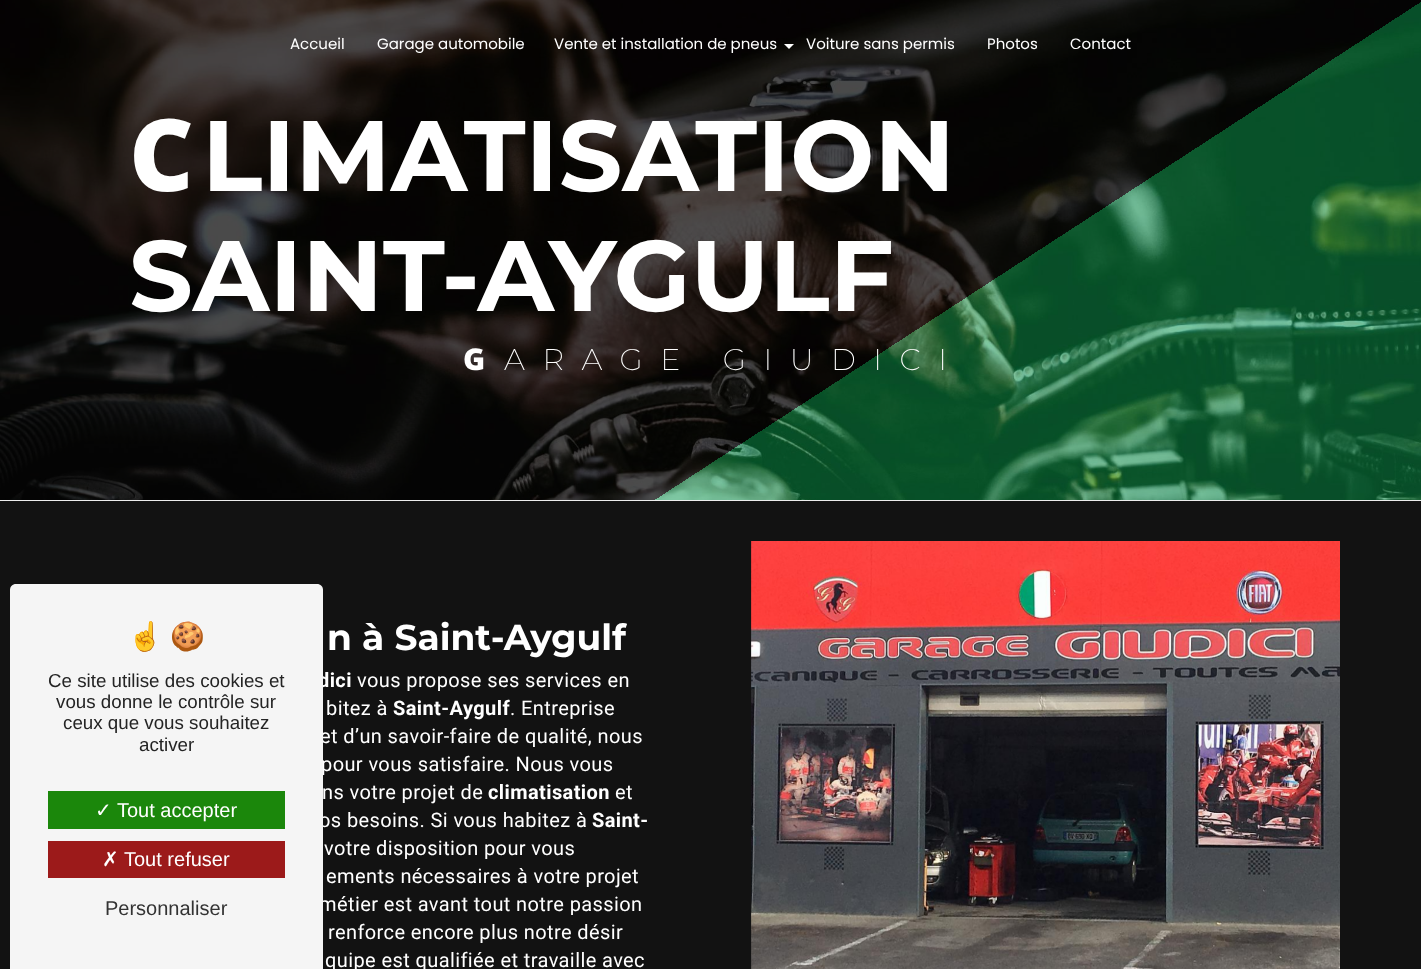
(async () => {
  const canvas = document.querySelector("canvas");
  canvas.width = 1421;
  canvas.height = 969;
  const ctx = canvas.getContext("2d");
  ctx.miterLimit = 4;
  ctx.fontKerning = "normal";
  async function loadImage(src) {
    const img = new Image();
    img.src = src;
    await img.decode();
    return img;
  }
  let path;

  ctx.fillStyle = "#121212";
  ctx.fillRect(0, 0, 1421, 969);
  ctx.drawImage(await loadImage("img/1.png"), 0, 0, 1421, 500);
  ctx.fillStyle = "#ffffff";
  path = new Path2D("M784 44H794L789 49Z");
  ctx.fill(path);
  ctx.fillStyle = "#ededed";
  ctx.fillRect(0, 500, 1421, 1);
  ctx.drawImage(await loadImage("img/2.png"), 751, 541, 589, 428);
  ctx.font = "15px Poppins";
  ctx.fillStyle = "#ffffff";
  for (const [text, x, y] of [
    ["Accueil", 290, 49],
    ["Garage automobile", 377, 49],
    ["Vente et installation de pneus", 554, 49],
    ["Voiture sans permis", 806, 49],
    ["Photos", 987, 49],
    ["Contact", 1070, 49],
  ]) {
    ctx.fillText(text, x, y);
  }
  ctx.font = "900 100px Noto Sans";
  ctx.fillText("C", 129, 191);
  ctx.font = "bold 100px Montserrat";
  ctx.fillText("LIMATISATION", 202, 191);
  ctx.fillText("SAINT-AYGULF", 129, 311);
  ctx.letterSpacing = "17.5px";
  ctx.font = "900 30px Noto Sans";
  ctx.fillText("G", 463, 370);
  ctx.font = "200 30px Montserrat";
  ctx.fillText("ARAGE GIUDICI", 504, 370);
  ctx.letterSpacing = "0px";
  ctx.font = "bold 36px Montserrat";
  ctx.fillText("n à Saint-Aygulf", 327, 650);
  ctx.letterSpacing = "0.4px";
  ctx.font = "bold 20px Roboto";
  ctx.fillText("dici", 318, 687);
  ctx.font = "20px Roboto";
  ctx.fillText("vous propose ses services en", 357, 687);
  ctx.fillText("bitez à", 326, 715);
  ctx.font = "bold 20px Roboto";
  ctx.fillText("Saint-Aygulf", 393, 715);
  ctx.font = "20px Roboto";
  for (const [text, x, y] of [
    [". Entreprise", 510, 715],
    ["et d’un savoir-faire de qualité, nous", 320, 743],
    ["pour vous satisfaire. Nous vous", 321, 771],
    ["ns votre projet de", 322, 799],
  ]) {
    ctx.fillText(text, x, y);
  }
  ctx.font = "bold 20px Roboto";
  ctx.fillText("climatisation", 488, 799);
  ctx.font = "20px Roboto";
  ctx.fillText("et", 615, 799);
  ctx.fillText("os besoins. Si vous habitez à", 319, 827);
  ctx.font = "bold 20px Roboto";
  ctx.fillText("Saint-", 592, 827);
  ctx.font = "20px Roboto";
  for (const [text, x, y] of [
    ["votre disposition pour vous", 324, 855],
    ["ements nécessaires à votre projet", 326, 883],
    ["métier est avant tout notre passion", 319, 911],
    ["renforce encore plus notre désir", 328, 939],
    ["quipe est qualifiée et travaille avec", 325, 967],
  ]) {
    ctx.fillText(text, x, y);
  }
  ctx.fillStyle = "#f5f5f5";
  path = new Path2D("M16 584H317C320.5 584 323 586.5 323 590V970H10V590C10 586.5 12.5 584 16 584Z");
  ctx.fill(path);
  ctx.letterSpacing = "0px";
  ctx.font = "28px Noto Color Emoji";
  ctx.fillStyle = "#242424";
  ctx.fillText("☝", 128, 646);
  ctx.fillText("🍪", 170, 646);
  ctx.font = "18.75px Liberation Sans";
  for (const [text, x, y] of [
    ["Ce site utilise des cookies et", 48, 687],
    ["vous donne le contrôle sur", 56, 708],
    ["ceux que vous souhaitez", 63, 729],
    ["activer", 139, 751],
  ]) {
    ctx.fillText(text, x, y);
  }
  ctx.fillStyle = "#1b870b";
  ctx.fillRect(48, 791, 237, 38);
  ctx.font = "20px DejaVu Sans";
  ctx.fillStyle = "#ffffff";
  ctx.fillText("✓", 95, 817);
  ctx.font = "20px Liberation Sans";
  ctx.fillText("Tout accepter", 117, 817);
  ctx.fillStyle = "#9c1a1a";
  ctx.fillRect(48, 841, 237, 37);
  ctx.font = "20px DejaVu Sans";
  ctx.fillStyle = "#ffffff";
  ctx.fillText("✗", 102, 866);
  ctx.font = "20px Liberation Sans";
  ctx.fillText("Tout refuser", 124, 866);
  ctx.fillStyle = "#333333";
  ctx.fillText("Personnaliser", 105, 915);
})();
